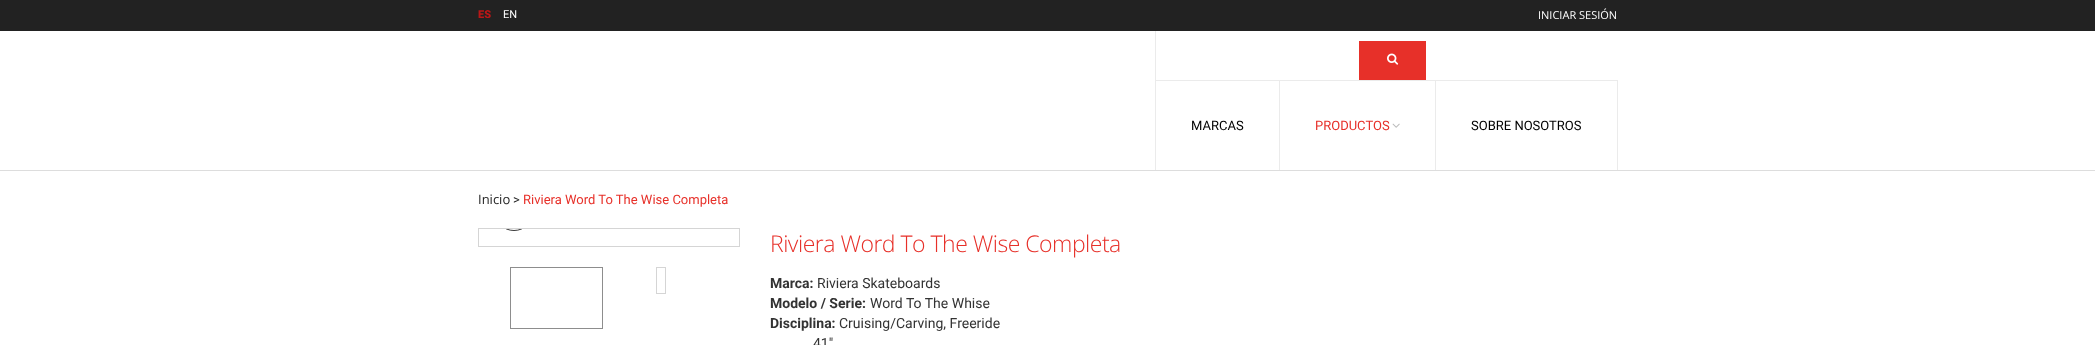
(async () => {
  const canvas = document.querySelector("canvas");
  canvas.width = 2095;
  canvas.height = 345;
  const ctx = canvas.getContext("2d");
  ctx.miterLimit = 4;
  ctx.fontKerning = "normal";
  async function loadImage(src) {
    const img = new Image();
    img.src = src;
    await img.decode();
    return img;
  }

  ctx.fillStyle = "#ffffff";
  ctx.fillRect(0, 0, 2095, 345);
  for (const [x, y, w, h, color] of [
    [0, 170, 2095, 1, "#dddddd"],
    [0, 0, 2095, 31, "#222222"],
    [1155, 31, 1, 139, "#ebebeb"],
    [1359, 41, 67, 39, "#e73029"],
  ]) {
    ctx.fillStyle = color;
    ctx.fillRect(x, y, w, h);
  }
  ctx.drawImage(await loadImage("img/1.png"), 1387, 53, 12, 12);
  for (const [x, y, w, h, color] of [
    [1156, 80, 462, 1, "#ebebeb"],
    [1279, 81, 1, 89, "#ebebeb"],
    [1435, 81, 1, 89, "#ebebeb"],
  ]) {
    ctx.fillStyle = color;
    ctx.fillRect(x, y, w, h);
  }
  ctx.drawImage(await loadImage("img/2.png"), 1392, 123, 8, 5);
  ctx.fillRect(1617, 81, 1, 89);
  ctx.strokeStyle = "#d5d5d5";
  ctx.strokeRect(478.5, 228.5, 261, 18);
  ctx.strokeStyle = "#8d8d8d";
  ctx.strokeRect(510.5, 267.5, 92, 61);
  ctx.strokeStyle = "#d5d5d5";
  ctx.strokeRect(656.5, 267.5, 9, 26);
  ctx.font = "900 11px Roboto";
  ctx.fillStyle = "#ba1717";
  ctx.fillText("ES", 478, 18);
  ctx.font = "11px Roboto";
  ctx.fillStyle = "#ffffff";
  ctx.fillText("EN", 503, 18);
  ctx.font = "11px Open Sans";
  ctx.fillText("INICIAR SESIÓN", 1538, 19);
  ctx.font = "13px Roboto";
  ctx.fillStyle = "#000000";
  ctx.fillText("MARCAS", 1191, 130);
  ctx.fillStyle = "#e73029";
  ctx.fillText("PRODUCTOS", 1315, 130);
  ctx.fillStyle = "#000000";
  ctx.fillText("SOBRE NOSOTROS", 1471, 130);
  ctx.font = "13px Open Sans";
  ctx.fillStyle = "#252525";
  ctx.fillText("Inicio", 478, 204);
  ctx.font = "13px Roboto";
  ctx.fillText(">", 513, 204);
  ctx.fillStyle = "#e73029";
  ctx.fillText("Riviera Word To The Wise Completa", 523, 204);
  ctx.save();
  ctx.beginPath();
  ctx.rect(479, 229, 260, 17);
  ctx.clip();
  ctx.beginPath();
  ctx.arc(514, 211, 19.5, 0, Math.PI * 2);
  ctx.strokeStyle = "#3a3a3a";
  ctx.stroke();
  ctx.restore();
  ctx.letterSpacing = "-0.5px";
  ctx.font = "300 23px Open Sans";
  ctx.fillText("Riviera Word To The Wise Completa", 770, 252);
  ctx.letterSpacing = "0px";
  ctx.font = "bold 14px Roboto";
  ctx.fillStyle = "#333333";
  ctx.fillText("Marca:", 770, 288);
  ctx.font = "14px Roboto";
  ctx.fillText("Riviera Skateboards", 817, 288);
  ctx.font = "bold 14px Roboto";
  ctx.fillText("Modelo / Serie:", 770, 308);
  ctx.font = "14px Roboto";
  ctx.fillText("Word To The Whise", 870, 308);
  ctx.font = "bold 14px Roboto";
  ctx.fillText("Disciplina:", 770, 328);
  ctx.font = "14px Roboto";
  ctx.fillText("Cruising/Carving, Freeride", 839, 328);
  ctx.fillText("41\"", 813, 348);
})();
